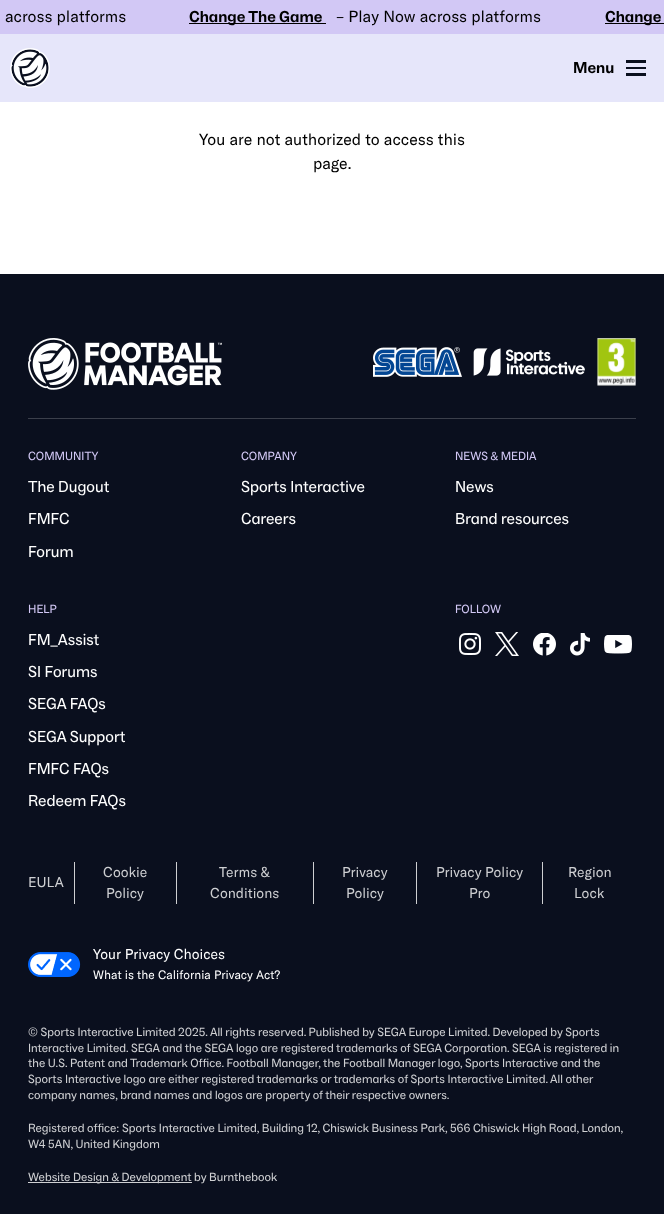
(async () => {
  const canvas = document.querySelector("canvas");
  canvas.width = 664;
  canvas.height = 1214;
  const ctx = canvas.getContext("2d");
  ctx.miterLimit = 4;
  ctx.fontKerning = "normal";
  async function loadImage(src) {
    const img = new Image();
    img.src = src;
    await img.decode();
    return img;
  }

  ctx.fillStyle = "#ffffff";
  ctx.fillRect(0, 0, 664, 1214);
  for (const [x, y, w, h, color] of [
    [0, 0, 664, 34, "#d2c8f5"],
    [189, 23, 137, 1, "#000000"],
    [605, 23, 59, 1, "#000000"],
    [0, 34, 664, 68, "#e6e6fa"],
  ]) {
    ctx.fillStyle = color;
    ctx.fillRect(x, y, w, h);
  }
  ctx.drawImage(await loadImage("img/1.png"), 10, 48, 40, 40);
  for (const [x, y, w, h, color] of [
    [626, 60, 20, 3, "#0a0f1e"],
    [626, 67, 20, 2, "#0a0f1e"],
    [626, 73, 20, 3, "#0a0f1e"],
    [0, 274, 664, 940, "#0a0f1e"],
    [28, 418, 608, 1, "#3b3f4b"],
  ]) {
    ctx.fillStyle = color;
    ctx.fillRect(x, y, w, h);
  }
  ctx.drawImage(await loadImage("img/2.png"), 28, 338, 194, 52);
  ctx.drawImage(await loadImage("img/3.png"), 373, 347, 89, 30);
  ctx.drawImage(await loadImage("img/4.png"), 473, 348, 112, 28);
  ctx.drawImage(await loadImage("img/5.png"), 597, 338, 39, 48);
  ctx.drawImage(await loadImage("img/6.png"), 459, 633, 22, 22);
  ctx.drawImage(await loadImage("img/7.png"), 495, 632, 24, 24);
  ctx.drawImage(await loadImage("img/8.png"), 533, 633, 23, 23);
  ctx.drawImage(await loadImage("img/9.png"), 570, 633, 20, 23);
  ctx.drawImage(await loadImage("img/10.png"), 604, 635, 28, 19);
  for (const [x, y, w, h, color] of [
    [74, 862, 1, 42, "#cecfd2"],
    [176, 862, 1, 42, "#cecfd2"],
    [313, 862, 1, 42, "#cecfd2"],
    [416, 862, 1, 42, "#cecfd2"],
    [542, 862, 1, 42, "#cecfd2"],
  ]) {
    ctx.fillStyle = color;
    ctx.fillRect(x, y, w, h);
  }
  ctx.drawImage(await loadImage("img/11.png"), 28, 952, 53, 25);
  ctx.fillRect(28, 1182, 164, 1);
  ctx.font = "16px GT America";
  ctx.fillStyle = "#000000";
  ctx.fillText("across platforms", 5, 22);
  ctx.font = "bold 16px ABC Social";
  ctx.fillText("Change The Game", 189, 22);
  ctx.font = "16px GT America";
  ctx.fillText("– Play Now across platforms", 336, 22);
  ctx.font = "bold 16px ABC Social";
  ctx.fillText("Change", 605, 22);
  ctx.fillText("Menu", 573, 73);
  ctx.font = "16px GT America";
  ctx.fillText("You are not authorized to access this", 199, 145);
  ctx.fillText("page.", 313, 169);
  ctx.font = "12px ABC Social";
  ctx.fillStyle = "#d2c8f5";
  ctx.fillText("COMMUNITY", 28, 460);
  ctx.font = "16px ABC Social";
  ctx.fillStyle = "#ffffff";
  for (const [text, x, y] of [
    ["The Dugout", 28, 492],
    ["FMFC", 28, 524],
    ["Forum", 28, 557],
  ]) {
    ctx.fillText(text, x, y);
  }
  ctx.font = "12px ABC Social";
  ctx.fillStyle = "#d2c8f5";
  ctx.fillText("COMPANY", 241, 460);
  ctx.font = "16px ABC Social";
  ctx.fillStyle = "#ffffff";
  ctx.fillText("Sports Interactive", 241, 492);
  ctx.fillText("Careers", 241, 524);
  ctx.font = "12px ABC Social";
  ctx.fillStyle = "#d2c8f5";
  ctx.fillText("NEWS & MEDIA", 455, 460);
  ctx.font = "16px ABC Social";
  ctx.fillStyle = "#ffffff";
  ctx.fillText("News", 455, 492);
  ctx.fillText("Brand resources", 455, 524);
  ctx.font = "12px ABC Social";
  ctx.fillStyle = "#d2c8f5";
  ctx.fillText("HELP", 28, 613);
  ctx.font = "16px ABC Social";
  ctx.fillStyle = "#ffffff";
  for (const [text, x, y] of [
    ["FM_Assist", 28, 645],
    ["SI Forums", 28, 677],
    ["SEGA FAQs", 28, 709],
    ["SEGA Support", 28, 742],
    ["FMFC FAQs", 28, 774],
    ["Redeem FAQs", 28, 806],
  ]) {
    ctx.fillText(text, x, y);
  }
  ctx.font = "12px ABC Social";
  ctx.fillStyle = "#d2c8f5";
  ctx.fillText("FOLLOW", 455, 613);
  ctx.font = "14px GT America";
  ctx.fillStyle = "#cecfd2";
  for (const [text, x, y] of [
    ["EULA", 28, 887],
    ["Cookie", 103, 877],
    ["Policy", 106, 898],
    ["Terms &", 219, 877],
    ["Conditions", 210, 898],
    ["Privacy", 342, 877],
    ["Policy", 346, 898],
    ["Privacy Policy", 436, 877],
    ["Pro", 469, 898],
    ["Region", 568, 877],
    ["Lock", 574, 898],
  ]) {
    ctx.fillText(text, x, y);
  }
  ctx.fillStyle = "#ffffff";
  ctx.fillText("Your Privacy Choices", 93, 959);
  ctx.font = "12px GT America";
  ctx.fillText("What is the California Privacy Act?", 93, 979);
  ctx.font = "12px ABC Social";
  ctx.fillStyle = "#cecfd2";
  for (const [text, x, y] of [
    ["© Sports Interactive Limited 2025. All rights reserved. Published by SEGA Europe Limited. Developed by Sports", 28, 1036],
    ["Interactive Limited. SEGA and the SEGA logo are registered trademarks of SEGA Corporation. SEGA is registered in", 28, 1052],
    ["the U.S. Patent and Trademark Office. Football Manager, the Football Manager logo, Sports Interactive and the", 28, 1067],
    ["Sports Interactive logo are either registered trademarks or trademarks of Sports Interactive Limited. All other", 28, 1083],
    ["company names, brand names and logos are property of their respective owners.", 28, 1099],
    ["Registered office: Sports Interactive Limited, Building 12, Chiswick Business Park, 566 Chiswick High Road, London,", 28, 1132],
    ["W4 5AN, United Kingdom", 28, 1148],
    ["Website Design & Development by Burnthebook", 28, 1181],
  ]) {
    ctx.fillText(text, x, y);
  }
})();
